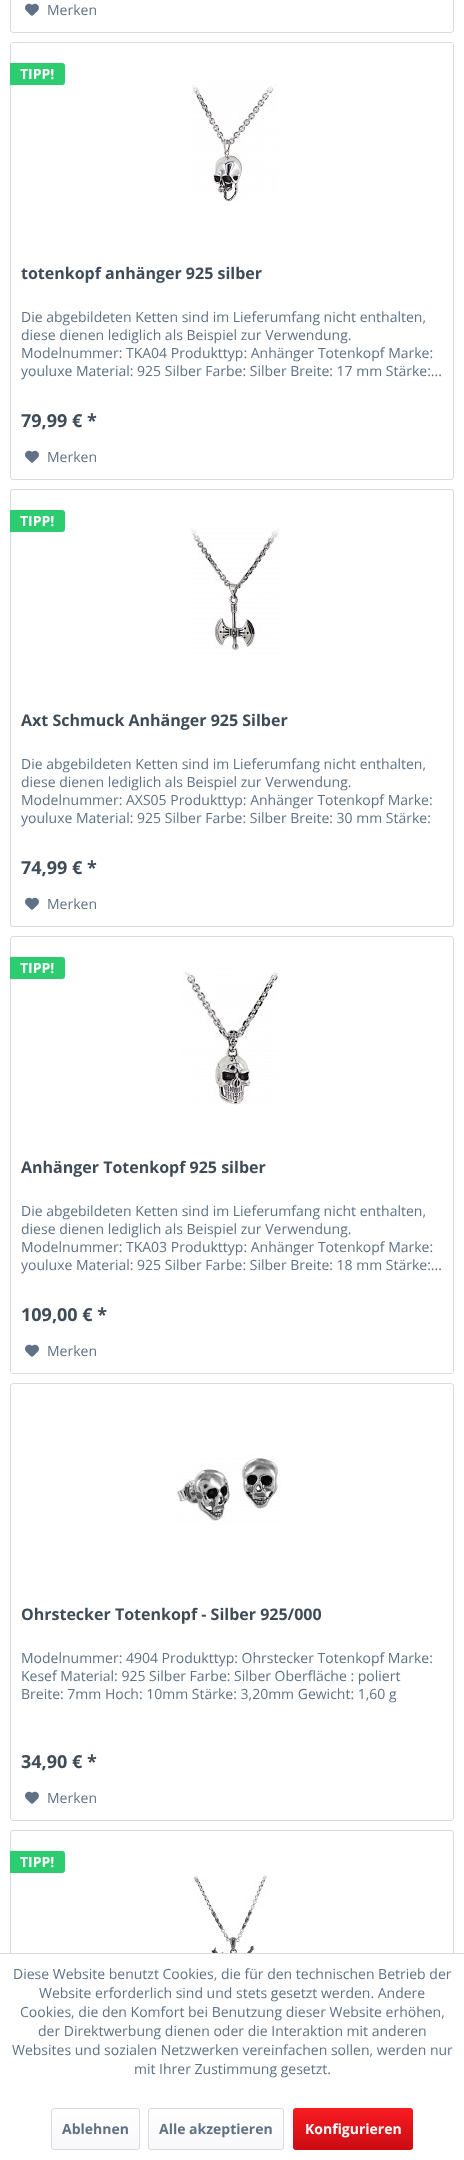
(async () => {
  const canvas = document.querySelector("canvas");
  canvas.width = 464;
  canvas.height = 2160;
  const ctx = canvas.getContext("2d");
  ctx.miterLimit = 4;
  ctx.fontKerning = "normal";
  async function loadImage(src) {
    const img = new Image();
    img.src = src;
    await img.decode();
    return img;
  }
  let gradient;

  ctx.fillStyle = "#ffffff";
  ctx.fillRect(0, 0, 464, 2160);
  ctx.beginPath();
  ctx.roundRect(10.5, -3.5, 443, 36, 2.5);
  ctx.strokeStyle = "#dadae5";
  ctx.stroke();
  ctx.drawImage(await loadImage("img/1.png"), 25, 3, 14, 13);
  ctx.beginPath();
  ctx.roundRect(10.5, 42.5, 443, 437, 2.5);
  ctx.stroke();
  ctx.fillStyle = "#2ecc71";
  ctx.beginPath();
  ctx.roundRect(10, 63, 55, 22, [0, 3, 3, 0]);
  ctx.fill();
  ctx.drawImage(await loadImage("img/2.png"), 191, 81, 87, 121);
  ctx.drawImage(await loadImage("img/1.png"), 25, 450, 14, 13);
  ctx.beginPath();
  ctx.roundRect(10.5, 489.5, 443, 437, 2.5);
  ctx.stroke();
  ctx.beginPath();
  ctx.roundRect(10, 510, 55, 22, [0, 3, 3, 0]);
  ctx.fill();
  ctx.drawImage(await loadImage("img/3.png"), 190, 528, 90, 127);
  ctx.drawImage(await loadImage("img/1.png"), 25, 897, 14, 13);
  ctx.beginPath();
  ctx.roundRect(10.5, 936.5, 443, 437, 2.5);
  ctx.stroke();
  ctx.beginPath();
  ctx.roundRect(10, 957, 55, 22, [0, 3, 3, 0]);
  ctx.fill();
  ctx.drawImage(await loadImage("img/4.png"), 182, 968, 96, 137);
  ctx.drawImage(await loadImage("img/1.png"), 25, 1344, 14, 13);
  ctx.beginPath();
  ctx.roundRect(10.5, 1383.5, 443, 437, 2.5);
  ctx.stroke();
  ctx.drawImage(await loadImage("img/5.png"), 176, 1455, 105, 69);
  ctx.drawImage(await loadImage("img/1.png"), 25, 1791, 14, 13);
  ctx.beginPath();
  ctx.roundRect(10.5, 1830.5, 443, 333, 2.5);
  ctx.stroke();
  ctx.beginPath();
  ctx.roundRect(10, 1851, 55, 22, [0, 3, 3, 0]);
  ctx.fill();
  ctx.drawImage(await loadImage("img/6.png"), 191, 1875, 78, 78);
  ctx.fillStyle = "#ffffff";
  ctx.fillRect(10, 1954, 444, 206);
  ctx.fillStyle = "#dadae5";
  ctx.fillRect(0, 1953, 464, 1);
  gradient = ctx.createLinearGradient(96, 2109, 96, 2149);
  gradient.addColorStop(0, "#ffffff");
  gradient.addColorStop(1, "#f8f8fa");
  ctx.fillStyle = gradient;
  ctx.beginPath();
  ctx.roundRect(52, 2109, 87, 40, 2);
  ctx.fill();
  ctx.beginPath();
  ctx.roundRect(51.5, 2108.5, 88, 41, 2.5);
  ctx.stroke();
  gradient = ctx.createLinearGradient(216, 2109, 216, 2149);
  gradient.addColorStop(0, "#ffffff");
  gradient.addColorStop(1, "#f8f8fa");
  ctx.fillStyle = gradient;
  ctx.beginPath();
  ctx.roundRect(149, 2109, 134, 40, 2);
  ctx.fill();
  ctx.beginPath();
  ctx.roundRect(148.5, 2108.5, 135, 41, 2.5);
  ctx.stroke();
  gradient = ctx.createLinearGradient(353, 2108, 353, 2150);
  gradient.addColorStop(0, "#f81b22");
  gradient.addColorStop(1, "#c90c12");
  ctx.fillStyle = gradient;
  ctx.beginPath();
  ctx.roundRect(293, 2108, 120, 42, 3);
  ctx.fill();
  ctx.font = "14px Open Sans";
  ctx.fillStyle = "#5f7285";
  ctx.fillText("Merken", 47, 15);
  ctx.font = "bold 14px Open Sans";
  ctx.fillStyle = "#ffffff";
  ctx.fillText("TIPP!", 20, 79);
  ctx.font = "bold 16px Open Sans";
  ctx.fillStyle = "#3f4c58";
  ctx.fillText("totenkopf anhänger 925 silber", 21, 279);
  ctx.font = "14px Open Sans";
  ctx.fillStyle = "#5f7285";
  for (const [text, x, y] of [
    ["Die abgebildeten Ketten sind im Lieferumfang nicht enthalten,", 21, 322],
    ["diese dienen lediglich als Beispiel zur Verwendung.", 21, 340],
    ["Modelnummer: TKA04 Produkttyp: Anhänger Totenkopf Marke:", 21, 358],
    ["youluxe Material: 925 Silber Farbe: Silber Breite: 17 mm Stärke:...", 21, 376],
  ]) {
    ctx.fillText(text, x, y);
  }
  ctx.font = "bold 18px Open Sans";
  ctx.fillStyle = "#3f4c58";
  ctx.fillText("79,99 € *", 21, 427);
  ctx.font = "14px Open Sans";
  ctx.fillStyle = "#5f7285";
  ctx.fillText("Merken", 47, 462);
  ctx.font = "bold 14px Open Sans";
  ctx.fillStyle = "#ffffff";
  ctx.fillText("TIPP!", 20, 526);
  ctx.font = "bold 16px Open Sans";
  ctx.fillStyle = "#3f4c58";
  ctx.fillText("Axt Schmuck Anhänger 925 Silber", 21, 726);
  ctx.font = "14px Open Sans";
  ctx.fillStyle = "#5f7285";
  for (const [text, x, y] of [
    ["Die abgebildeten Ketten sind im Lieferumfang nicht enthalten,", 21, 769],
    ["diese dienen lediglich als Beispiel zur Verwendung.", 21, 787],
    ["Modelnummer: AXS05 Produkttyp: Anhänger Totenkopf Marke:", 21, 805],
    ["youluxe Material: 925 Silber Farbe: Silber Breite: 30 mm Stärke:", 21, 823],
  ]) {
    ctx.fillText(text, x, y);
  }
  ctx.font = "bold 18px Open Sans";
  ctx.fillStyle = "#3f4c58";
  ctx.fillText("74,99 € *", 21, 874);
  ctx.font = "14px Open Sans";
  ctx.fillStyle = "#5f7285";
  ctx.fillText("Merken", 47, 909);
  ctx.font = "bold 14px Open Sans";
  ctx.fillStyle = "#ffffff";
  ctx.fillText("TIPP!", 20, 973);
  ctx.font = "bold 16px Open Sans";
  ctx.fillStyle = "#3f4c58";
  ctx.fillText("Anhänger Totenkopf 925 silber", 21, 1173);
  ctx.font = "14px Open Sans";
  ctx.fillStyle = "#5f7285";
  for (const [text, x, y] of [
    ["Die abgebildeten Ketten sind im Lieferumfang nicht enthalten,", 21, 1216],
    ["diese dienen lediglich als Beispiel zur Verwendung.", 21, 1234],
    ["Modelnummer: TKA03 Produkttyp: Anhänger Totenkopf Marke:", 21, 1252],
    ["youluxe Material: 925 Silber Farbe: Silber Breite: 18 mm Stärke:...", 21, 1270],
  ]) {
    ctx.fillText(text, x, y);
  }
  ctx.font = "bold 18px Open Sans";
  ctx.fillStyle = "#3f4c58";
  ctx.fillText("109,00 € *", 21, 1321);
  ctx.font = "14px Open Sans";
  ctx.fillStyle = "#5f7285";
  ctx.fillText("Merken", 47, 1356);
  ctx.font = "bold 16px Open Sans";
  ctx.fillStyle = "#3f4c58";
  ctx.fillText("Ohrstecker Totenkopf - Silber 925/000", 21, 1620);
  ctx.font = "14px Open Sans";
  ctx.fillStyle = "#5f7285";
  for (const [text, x, y] of [
    ["Modelnummer: 4904 Produkttyp: Ohrstecker Totenkopf Marke:", 21, 1663],
    ["Kesef Material: 925 Silber Farbe: Silber Oberfläche : poliert", 21, 1681],
    ["Breite: 7mm Hoch: 10mm Stärke: 3,20mm Gewicht: 1,60 g", 21, 1699],
  ]) {
    ctx.fillText(text, x, y);
  }
  ctx.font = "bold 18px Open Sans";
  ctx.fillStyle = "#3f4c58";
  ctx.fillText("34,90 € *", 21, 1768);
  ctx.font = "14px Open Sans";
  ctx.fillStyle = "#5f7285";
  ctx.fillText("Merken", 47, 1803);
  ctx.font = "bold 14px Open Sans";
  ctx.fillStyle = "#ffffff";
  ctx.fillText("TIPP!", 20, 1867);
  ctx.font = "14px Open Sans";
  ctx.fillStyle = "#5f7285";
  for (const [text, x, y] of [
    ["Diese Website benutzt Cookies, die für den technischen Betrieb der", 13, 1979],
    ["Website erforderlich sind und stets gesetzt werden. Andere", 39, 1998],
    ["Cookies, die den Komfort bei Benutzung dieser Website erhöhen,", 20, 2017],
    ["der Direktwerbung dienen oder die Interaktion mit anderen", 38, 2036],
    ["Websites und sozialen Netzwerken vereinfachen sollen, werden nur", 12, 2055],
    ["mit Ihrer Zustimmung gesetzt.", 134, 2074],
  ]) {
    ctx.fillText(text, x, y);
  }
  ctx.font = "bold 14px Open Sans";
  ctx.fillText("Ablehnen", 62, 2134);
  ctx.fillText("Alle akzeptieren", 159, 2134);
  ctx.fillStyle = "#ffffff";
  ctx.fillText("Konfigurieren", 305, 2134);
})();
